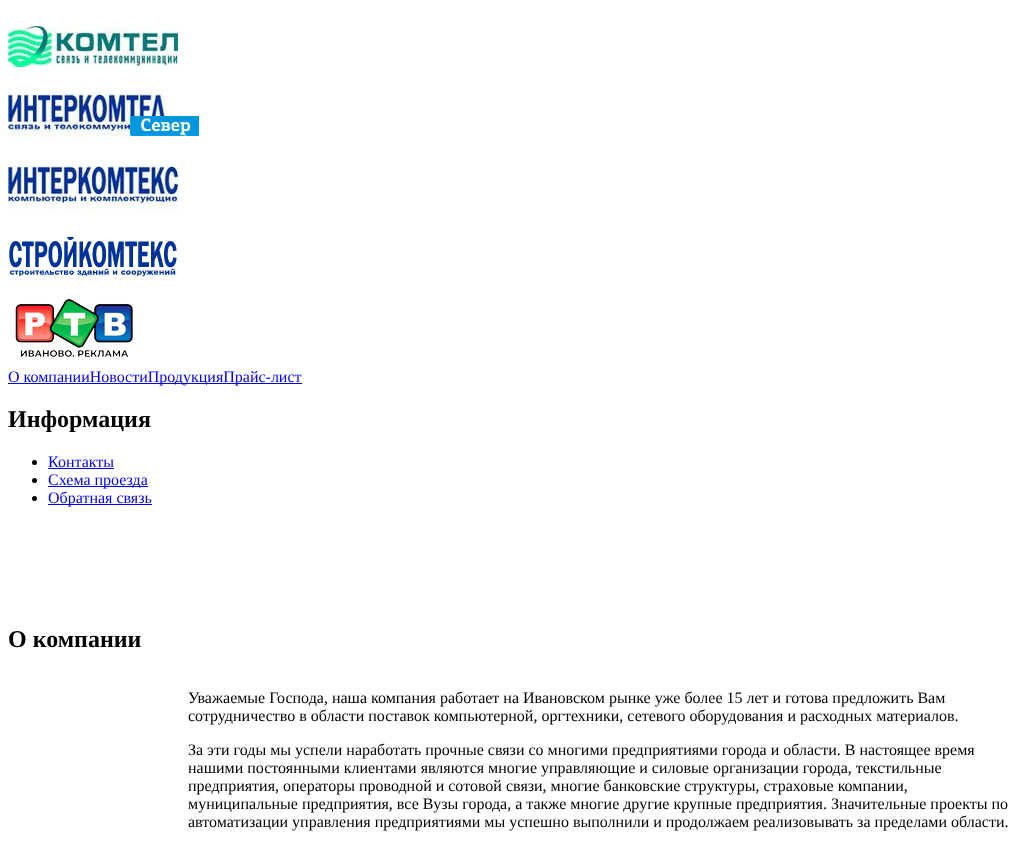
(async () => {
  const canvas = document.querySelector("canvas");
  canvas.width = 1028;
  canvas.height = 845;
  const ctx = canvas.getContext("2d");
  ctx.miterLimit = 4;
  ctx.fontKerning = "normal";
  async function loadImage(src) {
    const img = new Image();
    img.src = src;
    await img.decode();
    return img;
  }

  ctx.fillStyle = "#ffffff";
  ctx.fillRect(0, 0, 1028, 845);
  ctx.drawImage(await loadImage("img/1.png"), 8, 26, 170, 41);
  ctx.drawImage(await loadImage("img/2.png"), 8, 94, 161, 47);
  ctx.drawImage(await loadImage("img/3.png"), 130, 116, 69, 20);
  ctx.drawImage(await loadImage("img/4.png"), 8, 166, 170, 47);
  ctx.drawImage(await loadImage("img/5.png"), 9, 237, 168, 40);
  ctx.drawImage(await loadImage("img/6.png"), 15, 299, 118, 58);
  ctx.fillStyle = "#0000ee";
  ctx.fillRect(8, 383, 294, 1);
  ctx.fillStyle = "#000000";
  ctx.beginPath();
  ctx.arc(34.5, 462.5, 2.5, 0, Math.PI * 2);
  ctx.fill();
  ctx.fillStyle = "#0000ee";
  ctx.fillRect(48, 468, 66, 1);
  ctx.fillStyle = "#000000";
  ctx.beginPath();
  ctx.arc(34.5, 480.5, 2.5, 0, Math.PI * 2);
  ctx.fill();
  ctx.fillStyle = "#0000ee";
  ctx.fillRect(48, 486, 100, 1);
  ctx.fillStyle = "#000000";
  ctx.beginPath();
  ctx.arc(34.5, 498.5, 2.5, 0, Math.PI * 2);
  ctx.fill();
  ctx.fillStyle = "#0000ee";
  ctx.fillRect(48, 504, 104, 1);
  ctx.font = "16px Liberation Serif";
  ctx.fillText("О компанииНовостиПродукцияПрайс-лист", 8, 382);
  ctx.font = "bold 24px Liberation Serif";
  ctx.fillStyle = "#000000";
  ctx.fillText("Информация", 8, 427);
  ctx.font = "16px Liberation Serif";
  ctx.fillStyle = "#0000ee";
  for (const [text, x, y] of [
    ["Контакты", 48, 467],
    ["Схема проезда", 48, 485],
    ["Обратная связь", 48, 503],
  ]) {
    ctx.fillText(text, x, y);
  }
  ctx.font = "bold 24px Liberation Serif";
  ctx.fillStyle = "#000000";
  ctx.fillText("О компании", 8, 647);
  ctx.font = "16px Liberation Serif";
  for (const [text, x, y] of [
    ["Уважаемые Господа, наша компания работает на Ивановском рынке уже более 15 лет и готова предложить Вам", 188, 703],
    ["сотрудничество в области поставок компьютерной, оргтехники, сетевого оборудования и расходных материалов.", 188, 721],
    ["За эти годы мы успели наработать прочные связи со многими предприятиями города и области. В настоящее время", 188, 755],
    ["нашими постоянными клиентами являются многие управляющие и силовые организации города, текстильные", 188, 773],
    ["предприятия, операторы проводной и сотовой связи, многие банковские структуры, страховые компании,", 188, 791],
    ["муниципальные предприятия, все Вузы города, а также многие другие крупные предприятия. Значительные проекты по", 188, 809],
    ["автоматизации управления предприятиями мы успешно выполнили и продолжаем реализовывать за пределами области.", 188, 827],
  ]) {
    ctx.fillText(text, x, y);
  }
})();
